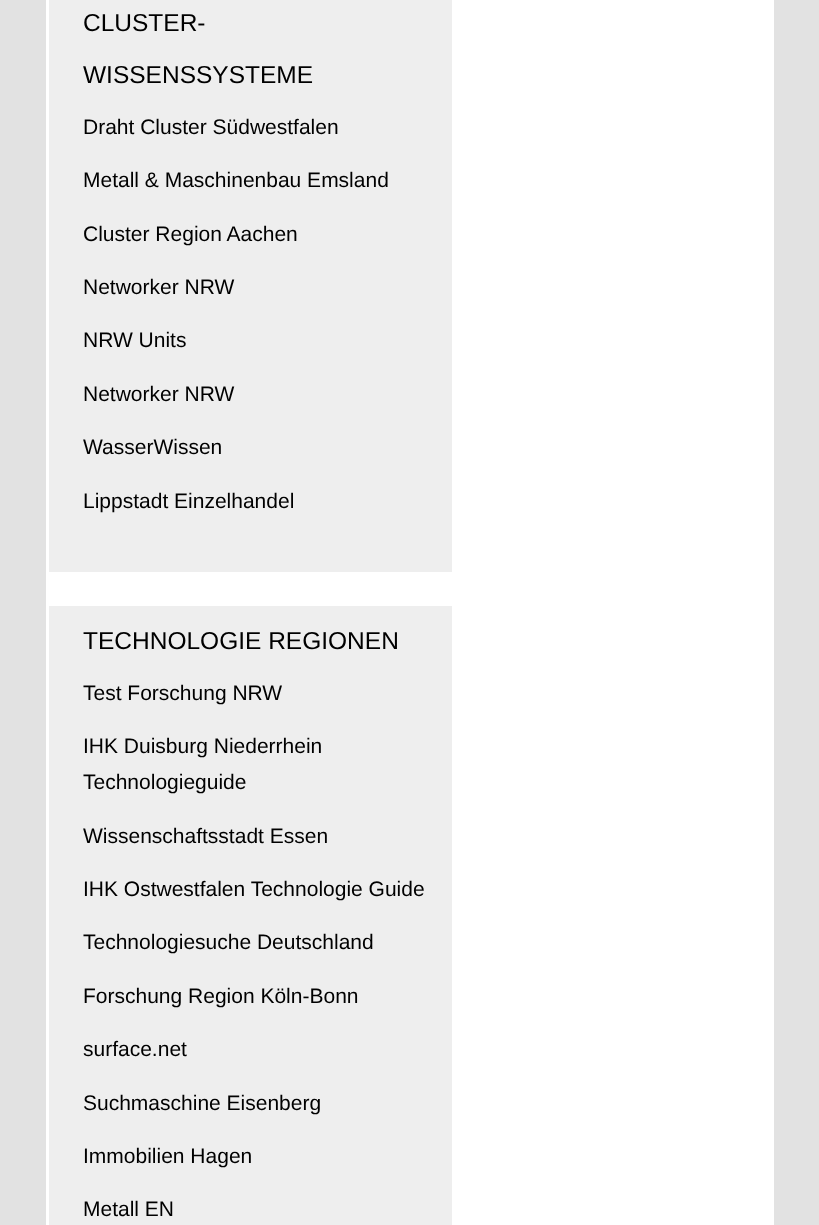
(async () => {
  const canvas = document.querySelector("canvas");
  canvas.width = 819;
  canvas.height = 1225;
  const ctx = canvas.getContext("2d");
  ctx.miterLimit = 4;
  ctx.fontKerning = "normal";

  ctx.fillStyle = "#e2e2e2";
  ctx.fillRect(0, 0, 819, 1225);
  for (const [x, y, w, h, color] of [
    [46, 0, 728, 1225, "#ffffff"],
    [49, 0, 403, 572, "#eeeeee"],
    [49, 606, 403, 619, "#eeeeee"],
  ]) {
    ctx.fillStyle = color;
    ctx.fillRect(x, y, w, h);
  }
  ctx.font = "24.5px Liberation Sans";
  ctx.fillStyle = "#000000";
  ctx.fillText("CLUSTER-", 83, 31);
  ctx.fillText("WISSENSSYSTEME", 83, 83);
  ctx.font = "21px Liberation Sans";
  for (const [text, x, y] of [
    ["Draht Cluster Südwestfalen", 83, 134],
    ["Metall & Maschinenbau Emsland", 83, 187],
    ["Cluster Region Aachen", 83, 241],
    ["Networker NRW", 83, 294],
    ["NRW Units", 83, 347],
    ["Networker NRW", 83, 401],
    ["WasserWissen", 83, 454],
    ["Lippstadt Einzelhandel", 83, 508],
  ]) {
    ctx.fillText(text, x, y);
  }
  ctx.font = "24.5px Liberation Sans";
  ctx.fillText("TECHNOLOGIE REGIONEN", 83, 649);
  ctx.font = "21px Liberation Sans";
  for (const [text, x, y] of [
    ["Test Forschung NRW", 83, 700],
    ["IHK Duisburg Niederrhein", 83, 753],
    ["Technologieguide", 83, 789],
    ["Wissenschaftsstadt Essen", 83, 843],
    ["IHK Ostwestfalen Technologie Guide", 83, 896],
    ["Technologiesuche Deutschland", 83, 949],
    ["Forschung Region Köln-Bonn", 83, 1003],
    ["surface.net", 83, 1056],
    ["Suchmaschine Eisenberg", 83, 1110],
    ["Immobilien Hagen", 83, 1163],
    ["Metall EN", 83, 1216],
  ]) {
    ctx.fillText(text, x, y);
  }
})();
